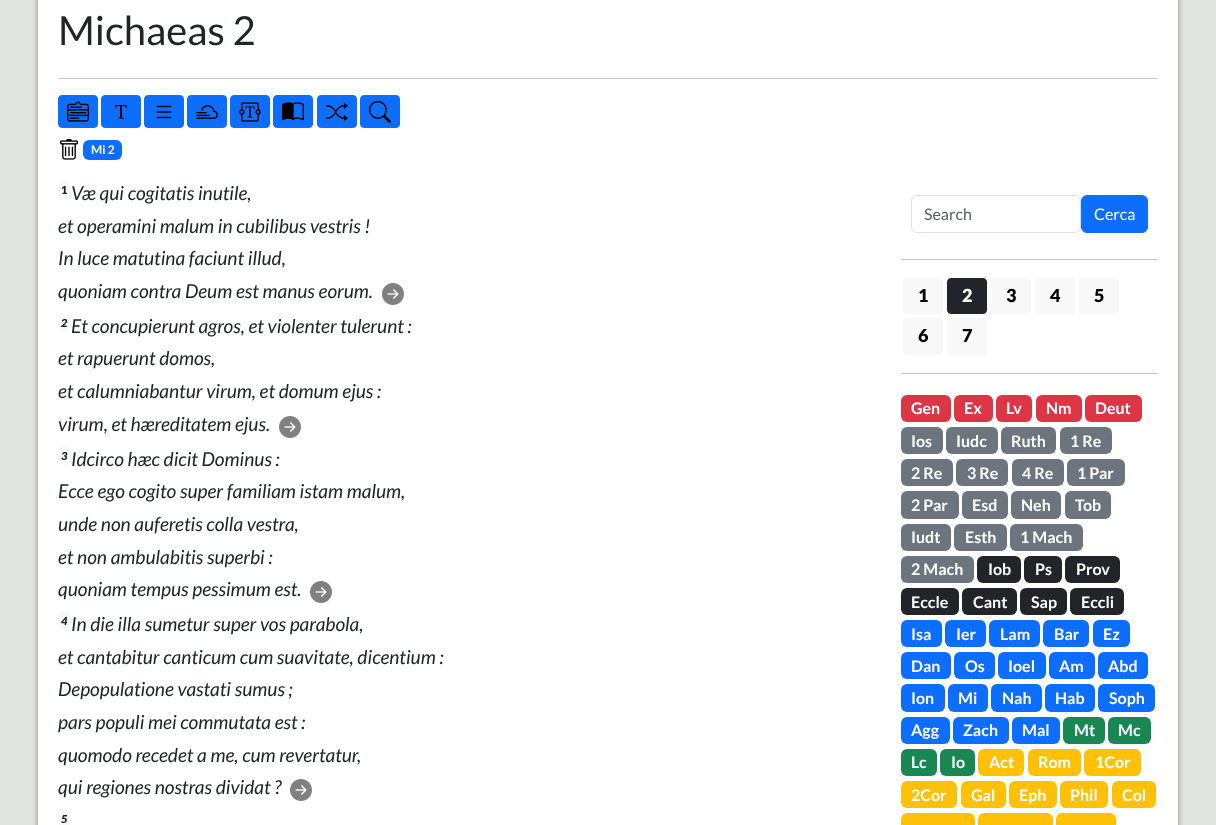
(async () => {
  const canvas = document.querySelector("canvas");
  canvas.width = 1216;
  canvas.height = 825;
  const ctx = canvas.getContext("2d");
  ctx.miterLimit = 4;
  ctx.fontKerning = "normal";
  async function loadImage(src) {
    const img = new Image();
    img.src = src;
    await img.decode();
    return img;
  }

  ctx.fillStyle = "#e2e4e1";
  ctx.fillRect(0, 0, 1216, 825);
  ctx.fillStyle = "rgba(0, 0, 0, 0.23)";
  ctx.filter = "blur(3px)";
  ctx.beginPath();
  ctx.rect(38, -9, 1140, 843);
  ctx.fill();
  ctx.filter = "none";
  ctx.fillStyle = "rgba(0, 0, 0, 0.19)";
  ctx.filter = "blur(2.5px)";
  ctx.beginPath();
  ctx.rect(38, -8, 1140, 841);
  ctx.fill();
  ctx.filter = "none";
  ctx.fillStyle = "#ffffff";
  ctx.fillRect(38, 0, 1140, 825);
  ctx.fillStyle = "#c8c9ca";
  ctx.fillRect(58, 78, 1100, 1);
  ctx.fillStyle = "#0d6efd";
  ctx.beginPath();
  ctx.roundRect(58.5, 95.5, 39, 32, 3.5);
  ctx.fill();
  ctx.strokeStyle = "#0d6efd";
  ctx.stroke();
  ctx.drawImage(await loadImage("img/1.png"), 67, 101, 22, 21);
  ctx.beginPath();
  ctx.roundRect(101.5, 95.5, 39, 32, 3.5);
  ctx.fill();
  ctx.stroke();
  ctx.drawImage(await loadImage("img/2.png"), 115, 105, 12, 14);
  ctx.beginPath();
  ctx.roundRect(144.5, 95.5, 39, 32, 3.5);
  ctx.fill();
  ctx.stroke();
  ctx.drawImage(await loadImage("img/3.png"), 156, 105, 16, 14);
  ctx.beginPath();
  ctx.roundRect(187.5, 95.5, 39, 32, 3.5);
  ctx.fill();
  ctx.stroke();
  ctx.drawImage(await loadImage("img/4.png"), 196, 105, 22, 14);
  ctx.beginPath();
  ctx.roundRect(230.5, 95.5, 39, 32, 3.5);
  ctx.fill();
  ctx.stroke();
  ctx.drawImage(await loadImage("img/5.png"), 239, 102, 22, 20);
  ctx.beginPath();
  ctx.roundRect(273.5, 95.5, 39, 32, 3.5);
  ctx.fill();
  ctx.stroke();
  ctx.drawImage(await loadImage("img/6.png"), 282, 102, 22, 19);
  ctx.beginPath();
  ctx.roundRect(317.5, 95.5, 39, 32, 3.5);
  ctx.fill();
  ctx.stroke();
  ctx.drawImage(await loadImage("img/7.png"), 326, 102, 22, 20);
  ctx.beginPath();
  ctx.roundRect(360.5, 95.5, 39, 32, 3.5);
  ctx.fill();
  ctx.stroke();
  ctx.drawImage(await loadImage("img/8.png"), 369, 101, 22, 22);
  ctx.drawImage(await loadImage("img/9.png"), 60, 139, 18, 21);
  ctx.beginPath();
  ctx.roundRect(83, 140, 39, 20, 6);
  ctx.fill();
  ctx.drawImage(await loadImage("img/10.png"), 382, 283, 22, 22);
  ctx.fillStyle = "#f8f8f8";
  ctx.beginPath();
  ctx.roundRect(58, 180, 13, 19, 6.5);
  ctx.fill();
  ctx.beginPath();
  ctx.roundRect(58, 313, 13, 19, 6.5);
  ctx.fill();
  ctx.drawImage(await loadImage("img/10.png"), 279, 416, 22, 22);
  ctx.beginPath();
  ctx.roundRect(58, 446, 13, 19, 6.5);
  ctx.fill();
  ctx.drawImage(await loadImage("img/10.png"), 310, 581, 22, 22);
  ctx.beginPath();
  ctx.roundRect(58, 611, 13, 19, 6.5);
  ctx.fill();
  ctx.drawImage(await loadImage("img/10.png"), 290, 779, 22, 22);
  ctx.beginPath();
  ctx.roundRect(58, 809, 13, 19, 6.5);
  ctx.fill();
  ctx.beginPath();
  ctx.roundRect(911.5, 195.5, 169, 37, 5.5);
  ctx.strokeStyle = "#dee2e6";
  ctx.stroke();
  ctx.fillStyle = "#0d6efd";
  ctx.beginPath();
  ctx.roundRect(1081.5, 195.5, 66, 37, 5.5);
  ctx.fill();
  ctx.strokeStyle = "#0d6efd";
  ctx.stroke();
  ctx.fillStyle = "#c8c9ca";
  ctx.fillRect(901, 259, 257, 1);
  ctx.fillStyle = "#f8f8f8";
  ctx.beginPath();
  ctx.roundRect(903, 278, 40, 36, 4);
  ctx.fill();
  ctx.fillStyle = "#212529";
  ctx.beginPath();
  ctx.roundRect(947.5, 278.5, 39, 35, 3.5);
  ctx.fill();
  ctx.strokeStyle = "#212529";
  ctx.stroke();
  ctx.fillStyle = "#f8f8f8";
  ctx.beginPath();
  ctx.roundRect(991, 278, 40, 36, 4);
  ctx.fill();
  ctx.beginPath();
  ctx.roundRect(1035, 278, 40, 36, 4);
  ctx.fill();
  ctx.beginPath();
  ctx.roundRect(1079, 278, 40, 36, 4);
  ctx.fill();
  ctx.beginPath();
  ctx.roundRect(903, 318, 40, 37, 4);
  ctx.fill();
  ctx.beginPath();
  ctx.roundRect(947, 318, 40, 37, 4);
  ctx.fill();
  ctx.fillStyle = "#c8c9ca";
  ctx.fillRect(901, 373, 257, 1);
  ctx.fillStyle = "#dc3545";
  ctx.beginPath();
  ctx.roundRect(901, 395, 50, 27, 6);
  ctx.fill();
  ctx.beginPath();
  ctx.roundRect(954, 395, 39, 27, 6);
  ctx.fill();
  ctx.beginPath();
  ctx.roundRect(996, 395, 36, 27, 6);
  ctx.fill();
  ctx.beginPath();
  ctx.roundRect(1036, 395, 46, 27, 6);
  ctx.fill();
  ctx.beginPath();
  ctx.roundRect(1085, 395, 57, 27, 6);
  ctx.fill();
  ctx.fillStyle = "#6c757d";
  ctx.beginPath();
  ctx.roundRect(901, 427, 42, 27, 6);
  ctx.fill();
  ctx.beginPath();
  ctx.roundRect(946, 427, 52, 27, 6);
  ctx.fill();
  ctx.beginPath();
  ctx.roundRect(1001, 427, 55, 27, 6);
  ctx.fill();
  ctx.beginPath();
  ctx.roundRect(1060, 427, 52, 27, 6);
  ctx.fill();
  ctx.beginPath();
  ctx.roundRect(901, 459, 52, 27, 6);
  ctx.fill();
  ctx.beginPath();
  ctx.roundRect(956, 459, 52, 27, 6);
  ctx.fill();
  ctx.beginPath();
  ctx.roundRect(1012, 459, 52, 27, 6);
  ctx.fill();
  ctx.beginPath();
  ctx.roundRect(1067, 459, 58, 27, 6);
  ctx.fill();
  ctx.beginPath();
  ctx.roundRect(901, 491, 58, 28, 6);
  ctx.fill();
  ctx.beginPath();
  ctx.roundRect(962, 491, 46, 28, 6);
  ctx.fill();
  ctx.beginPath();
  ctx.roundRect(1011, 491, 50, 28, 6);
  ctx.fill();
  ctx.beginPath();
  ctx.roundRect(1065, 491, 46, 28, 6);
  ctx.fill();
  ctx.beginPath();
  ctx.roundRect(901, 524, 50, 27, 6);
  ctx.fill();
  ctx.beginPath();
  ctx.roundRect(954, 524, 53, 27, 6);
  ctx.fill();
  ctx.beginPath();
  ctx.roundRect(1010, 524, 73, 27, 6);
  ctx.fill();
  ctx.beginPath();
  ctx.roundRect(901, 556, 73, 27, 6);
  ctx.fill();
  ctx.fillStyle = "#212529";
  ctx.beginPath();
  ctx.roundRect(977, 556, 44, 27, 6);
  ctx.fill();
  ctx.beginPath();
  ctx.roundRect(1024, 556, 38, 27, 6);
  ctx.fill();
  ctx.beginPath();
  ctx.roundRect(1065, 556, 55, 27, 6);
  ctx.fill();
  ctx.beginPath();
  ctx.roundRect(901, 588, 58, 27, 6);
  ctx.fill();
  ctx.beginPath();
  ctx.roundRect(962, 588, 55, 27, 6);
  ctx.fill();
  ctx.beginPath();
  ctx.roundRect(1020, 588, 47, 27, 6);
  ctx.fill();
  ctx.beginPath();
  ctx.roundRect(1070, 588, 54, 27, 6);
  ctx.fill();
  ctx.fillStyle = "#0d6efd";
  ctx.beginPath();
  ctx.roundRect(901, 620, 41, 27, 6);
  ctx.fill();
  ctx.beginPath();
  ctx.roundRect(945, 620, 41, 27, 6);
  ctx.fill();
  ctx.beginPath();
  ctx.roundRect(989, 620, 51, 27, 6);
  ctx.fill();
  ctx.beginPath();
  ctx.roundRect(1043, 620, 46, 27, 6);
  ctx.fill();
  ctx.beginPath();
  ctx.roundRect(1093, 620, 37, 27, 6);
  ctx.fill();
  ctx.beginPath();
  ctx.roundRect(901, 652, 50, 27, 6);
  ctx.fill();
  ctx.beginPath();
  ctx.roundRect(954, 652, 41, 27, 6);
  ctx.fill();
  ctx.beginPath();
  ctx.roundRect(998, 652, 48, 27, 6);
  ctx.fill();
  ctx.beginPath();
  ctx.roundRect(1049, 652, 46, 27, 6);
  ctx.fill();
  ctx.beginPath();
  ctx.roundRect(1098, 652, 50, 27, 6);
  ctx.fill();
  ctx.beginPath();
  ctx.roundRect(901, 684, 44, 28, 6);
  ctx.fill();
  ctx.beginPath();
  ctx.roundRect(948, 684, 40, 28, 6);
  ctx.fill();
  ctx.beginPath();
  ctx.roundRect(991, 684, 51, 28, 6);
  ctx.fill();
  ctx.beginPath();
  ctx.roundRect(1045, 684, 50, 28, 6);
  ctx.fill();
  ctx.beginPath();
  ctx.roundRect(1098, 684, 57, 28, 6);
  ctx.fill();
  ctx.beginPath();
  ctx.roundRect(901, 717, 49, 27, 6);
  ctx.fill();
  ctx.beginPath();
  ctx.roundRect(953, 717, 56, 27, 6);
  ctx.fill();
  ctx.beginPath();
  ctx.roundRect(1012, 717, 48, 27, 6);
  ctx.fill();
  ctx.fillStyle = "#198754";
  ctx.beginPath();
  ctx.roundRect(1063, 717, 42, 27, 6);
  ctx.fill();
  ctx.beginPath();
  ctx.roundRect(1108, 717, 43, 27, 6);
  ctx.fill();
  ctx.beginPath();
  ctx.roundRect(901, 749, 36, 27, 6);
  ctx.fill();
  ctx.beginPath();
  ctx.roundRect(940, 749, 35, 27, 6);
  ctx.fill();
  ctx.fillStyle = "#ffc107";
  ctx.beginPath();
  ctx.roundRect(978, 749, 46, 27, 6);
  ctx.fill();
  ctx.beginPath();
  ctx.roundRect(1028, 749, 53, 27, 6);
  ctx.fill();
  ctx.beginPath();
  ctx.roundRect(1084, 749, 57, 27, 6);
  ctx.fill();
  ctx.beginPath();
  ctx.roundRect(901, 781, 56, 27, 6);
  ctx.fill();
  ctx.beginPath();
  ctx.roundRect(961, 781, 45, 27, 6);
  ctx.fill();
  ctx.beginPath();
  ctx.roundRect(1009, 781, 48, 27, 6);
  ctx.fill();
  ctx.beginPath();
  ctx.roundRect(1060, 781, 48, 27, 6);
  ctx.fill();
  ctx.beginPath();
  ctx.roundRect(1112, 781, 44, 27, 6);
  ctx.fill();
  ctx.beginPath();
  ctx.roundRect(901, 813, 74, 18, 6);
  ctx.fill();
  ctx.beginPath();
  ctx.roundRect(978, 813, 75, 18, 6);
  ctx.fill();
  ctx.beginPath();
  ctx.roundRect(1056, 813, 60, 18, 6);
  ctx.fill();
  ctx.font = "40px Lato";
  ctx.fillStyle = "#212529";
  ctx.fillText("Michaeas 2", 58, 45);
  ctx.font = "bold 12px Lato";
  ctx.fillStyle = "#ffffff";
  ctx.fillText("Mi 2", 91, 154);
  ctx.font = "italic 19.2px Lato";
  ctx.fillStyle = "#212529";
  for (const [text, x, y] of [
    ["Væ qui cogitatis inutile,", 71, 200],
    ["et operamini malum in cubilibus vestris !", 58, 233],
    ["In luce matutina faciunt illud,", 58, 265],
    ["quoniam contra Deum est manus eorum.", 58, 298],
  ]) {
    ctx.fillText(text, x, y);
  }
  ctx.font = "900 11px Lato";
  ctx.fillText("1", 61, 194);
  ctx.font = "italic 900 11px Lato";
  ctx.fillText("2", 61, 327);
  ctx.font = "italic 19.2px Lato";
  for (const [text, x, y] of [
    ["Et concupierunt agros, et violenter tulerunt :", 71, 333],
    ["et rapuerunt domos,", 58, 365],
    ["et calumniabantur virum, et domum ejus :", 58, 398],
    ["virum, et hæreditatem ejus.", 58, 431],
  ]) {
    ctx.fillText(text, x, y);
  }
  ctx.font = "italic 900 11px Lato";
  ctx.fillText("3", 61, 460);
  ctx.font = "italic 19.2px Lato";
  for (const [text, x, y] of [
    ["Idcirco hæc dicit Dominus :", 71, 466],
    ["Ecce ego cogito super familiam istam malum,", 58, 498],
    ["unde non auferetis colla vestra,", 58, 531],
    ["et non ambulabitis superbi :", 58, 564],
    ["quoniam tempus pessimum est.", 58, 596],
  ]) {
    ctx.fillText(text, x, y);
  }
  ctx.font = "italic 900 11px Lato";
  ctx.fillText("4", 61, 625);
  ctx.font = "italic 19.2px Lato";
  for (const [text, x, y] of [
    ["In die illa sumetur super vos parabola,", 71, 631],
    ["et cantabitur canticum cum suavitate, dicentium :", 58, 664],
    ["Depopulatione vastati sumus ;", 58, 696],
    ["pars populi mei commutata est :", 58, 729],
    ["quomodo recedet a me, cum revertatur,", 58, 762],
    ["qui regiones nostras dividat ?", 58, 794],
  ]) {
    ctx.fillText(text, x, y);
  }
  ctx.font = "italic 900 11px Lato";
  ctx.fillText("5", 61, 823);
  ctx.font = "16px Lato";
  ctx.fillStyle = "#595c5f";
  ctx.fillText("Search", 924, 220);
  ctx.fillStyle = "#ffffff";
  ctx.fillText("Cerca", 1094, 220);
  ctx.font = "900 18px Lato";
  ctx.fillStyle = "#000000";
  ctx.fillText("1", 918, 302);
  ctx.fillStyle = "#ffffff";
  ctx.fillText("2", 962, 302);
  ctx.fillStyle = "#000000";
  for (const [text, x, y] of [
    ["3", 1006, 302],
    ["4", 1050, 302],
    ["5", 1094, 302],
    ["6", 918, 342],
    ["7", 962, 342],
  ]) {
    ctx.fillText(text, x, y);
  }
  ctx.font = "bold 16px Lato";
  ctx.fillStyle = "#ffffff";
  for (const [text, x, y] of [
    ["Gen", 911, 414],
    ["Ex", 964, 414],
    ["Lv", 1006, 414],
    ["Nm", 1046, 414],
    ["Deut", 1095, 414],
    ["Ios", 911, 447],
    ["Iudc", 956, 447],
    ["Ruth", 1011, 447],
    ["1 Re", 1070, 447],
    ["2 Re", 911, 479],
    ["3 Re", 967, 479],
    ["4 Re", 1022, 479],
    ["1 Par", 1077, 479],
    ["2 Par", 911, 511],
    ["Esd", 972, 511],
    ["Neh", 1021, 511],
    ["Tob", 1075, 511],
    ["Iudt", 911, 543],
    ["Esth", 965, 543],
    ["1 Mach", 1020, 543],
    ["2 Mach", 911, 575],
    ["Iob", 988, 575],
    ["Ps", 1035, 575],
    ["Prov", 1076, 575],
    ["Eccle", 911, 608],
    ["Cant", 973, 608],
    ["Sap", 1031, 608],
    ["Eccli", 1081, 608],
    ["Isa", 911, 640],
    ["Ier", 956, 640],
    ["Lam", 1000, 640],
    ["Bar", 1054, 640],
    ["Ez", 1103, 640],
    ["Dan", 911, 672],
    ["Os", 965, 672],
    ["Ioel", 1008, 672],
    ["Am", 1059, 672],
    ["Abd", 1108, 672],
    ["Ion", 911, 704],
    ["Mi", 958, 704],
    ["Nah", 1002, 704],
    ["Hab", 1055, 704],
    ["Soph", 1109, 704],
    ["Agg", 911, 736],
    ["Zach", 963, 736],
    ["Mal", 1022, 736],
    ["Mt", 1074, 736],
    ["Mc", 1118, 736],
    ["Lc", 911, 768],
    ["Io", 951, 768],
    ["Act", 989, 768],
    ["Rom", 1038, 768],
    ["1Cor", 1095, 768],
    ["2Cor", 911, 801],
    ["Gal", 971, 801],
    ["Eph", 1019, 801],
    ["Phil", 1070, 801],
    ["Col", 1122, 801],
  ]) {
    ctx.fillText(text, x, y);
  }
})();
